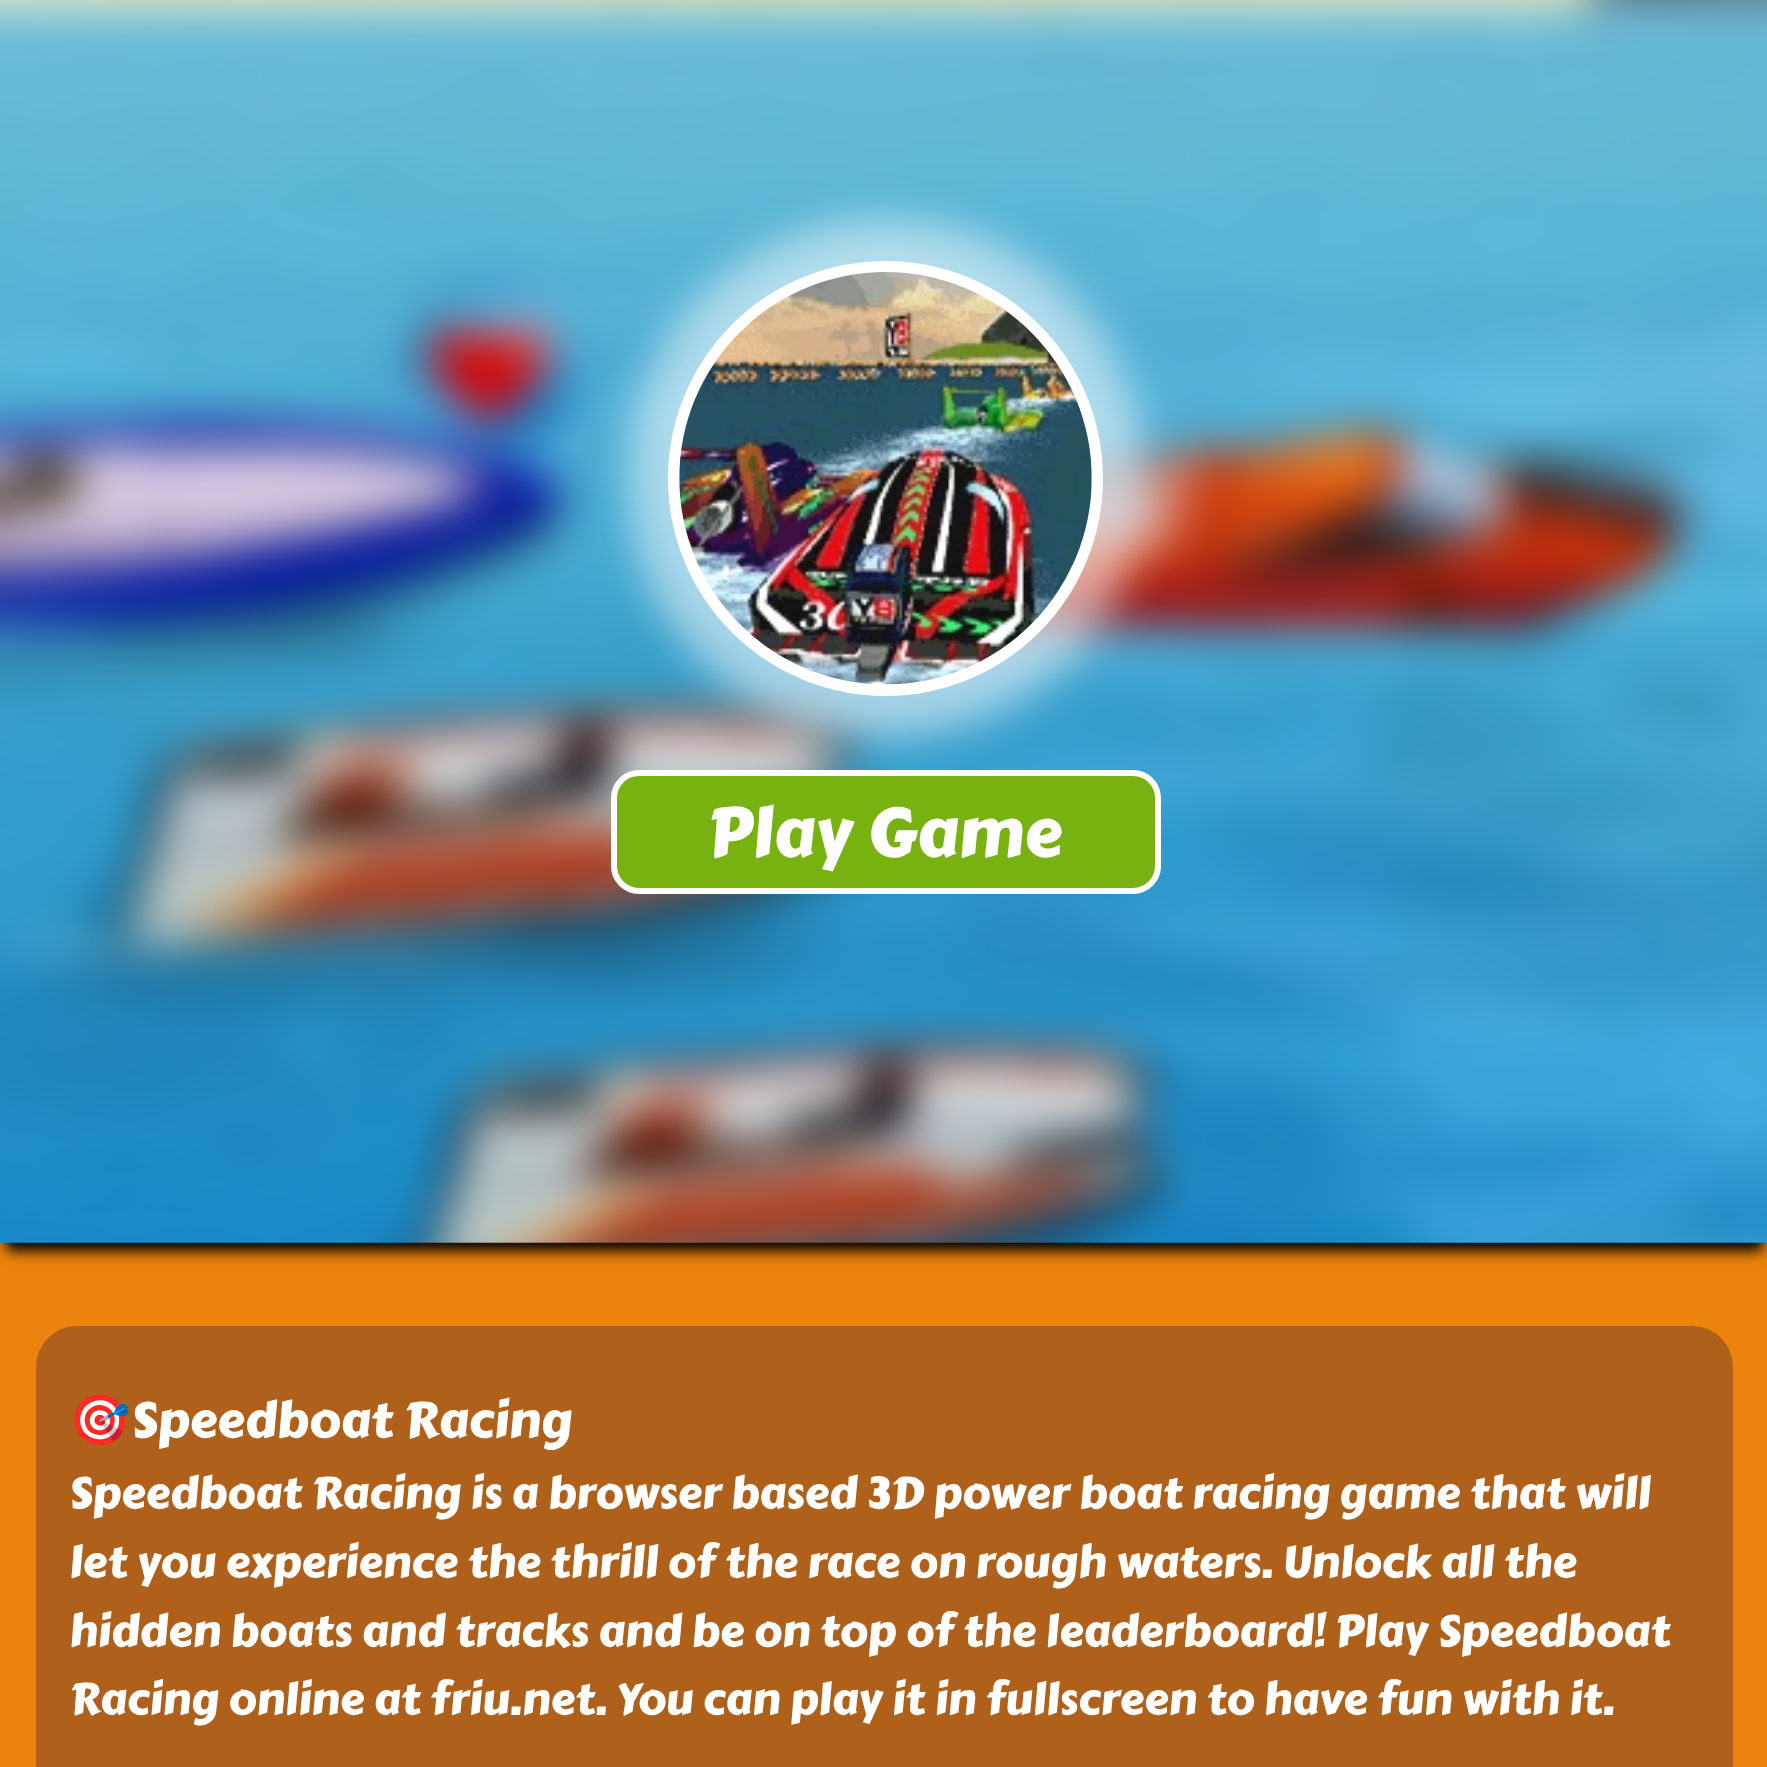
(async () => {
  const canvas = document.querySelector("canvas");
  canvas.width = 1767;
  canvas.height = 1767;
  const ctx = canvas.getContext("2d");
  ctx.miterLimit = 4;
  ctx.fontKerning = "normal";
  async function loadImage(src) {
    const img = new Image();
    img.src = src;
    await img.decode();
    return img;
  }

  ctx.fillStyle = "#eb830e";
  ctx.fillRect(0, 0, 1767, 1767);
  ctx.fillStyle = "#000000";
  ctx.filter = "blur(7px)";
  ctx.beginPath();
  ctx.rect(6, -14, 1757, 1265);
  ctx.fill();
  ctx.filter = "none";
  ctx.drawImage(await loadImage("img/1.png"), 0, 0, 1767, 1243);
  ctx.fillStyle = "rgba(255, 255, 255, 0.55)";
  ctx.filter = "blur(20.5px)";
  ctx.beginPath();
  ctx.roundRect(627, 220, 517, 517, 258.5);
  ctx.fill();
  ctx.filter = "none";
  ctx.fillStyle = "#ffffff";
  ctx.beginPath();
  ctx.arc(885.5, 478.5, 212, 0, Math.PI * 2);
  ctx.fill();
  ctx.strokeStyle = "#ffffff";
  ctx.lineWidth = 11;
  ctx.stroke();
  ctx.drawImage(await loadImage("img/2.png"), 679, 272, 413, 413);
  ctx.fillStyle = "#77b211";
  ctx.beginPath();
  ctx.roundRect(614, 773, 544, 118, 25);
  ctx.fill();
  ctx.lineWidth = 6;
  ctx.stroke();
  ctx.fillStyle = "#af601a";
  ctx.beginPath();
  ctx.roundRect(36, 1326, 1697, 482, 41);
  ctx.fill();
  ctx.font = "68.75px Carter One";
  ctx.fillStyle = "#ffffff";
  ctx.fillText("Play Game", 707, 856);
  ctx.font = "49.5px Noto Color Emoji";
  ctx.fillText("🎯", 69, 1437);
  ctx.font = "49.5px Carter One";
  ctx.fillText("Speedboat Racing", 131, 1437);
  ctx.font = "44px Carter One";
  for (const [text, x, y] of [
    ["Speedboat Racing is a browser based 3D power boat racing game that will", 69, 1508],
    ["let you experience the thrill of the race on rough waters. Unlock all the", 69, 1577],
    ["hidden boats and tracks and be on top of the leaderboard! Play Speedboat", 69, 1646],
    ["Racing online at friu.net. You can play it in fullscreen to have fun with it.", 69, 1714],
  ]) {
    ctx.fillText(text, x, y);
  }
})();
